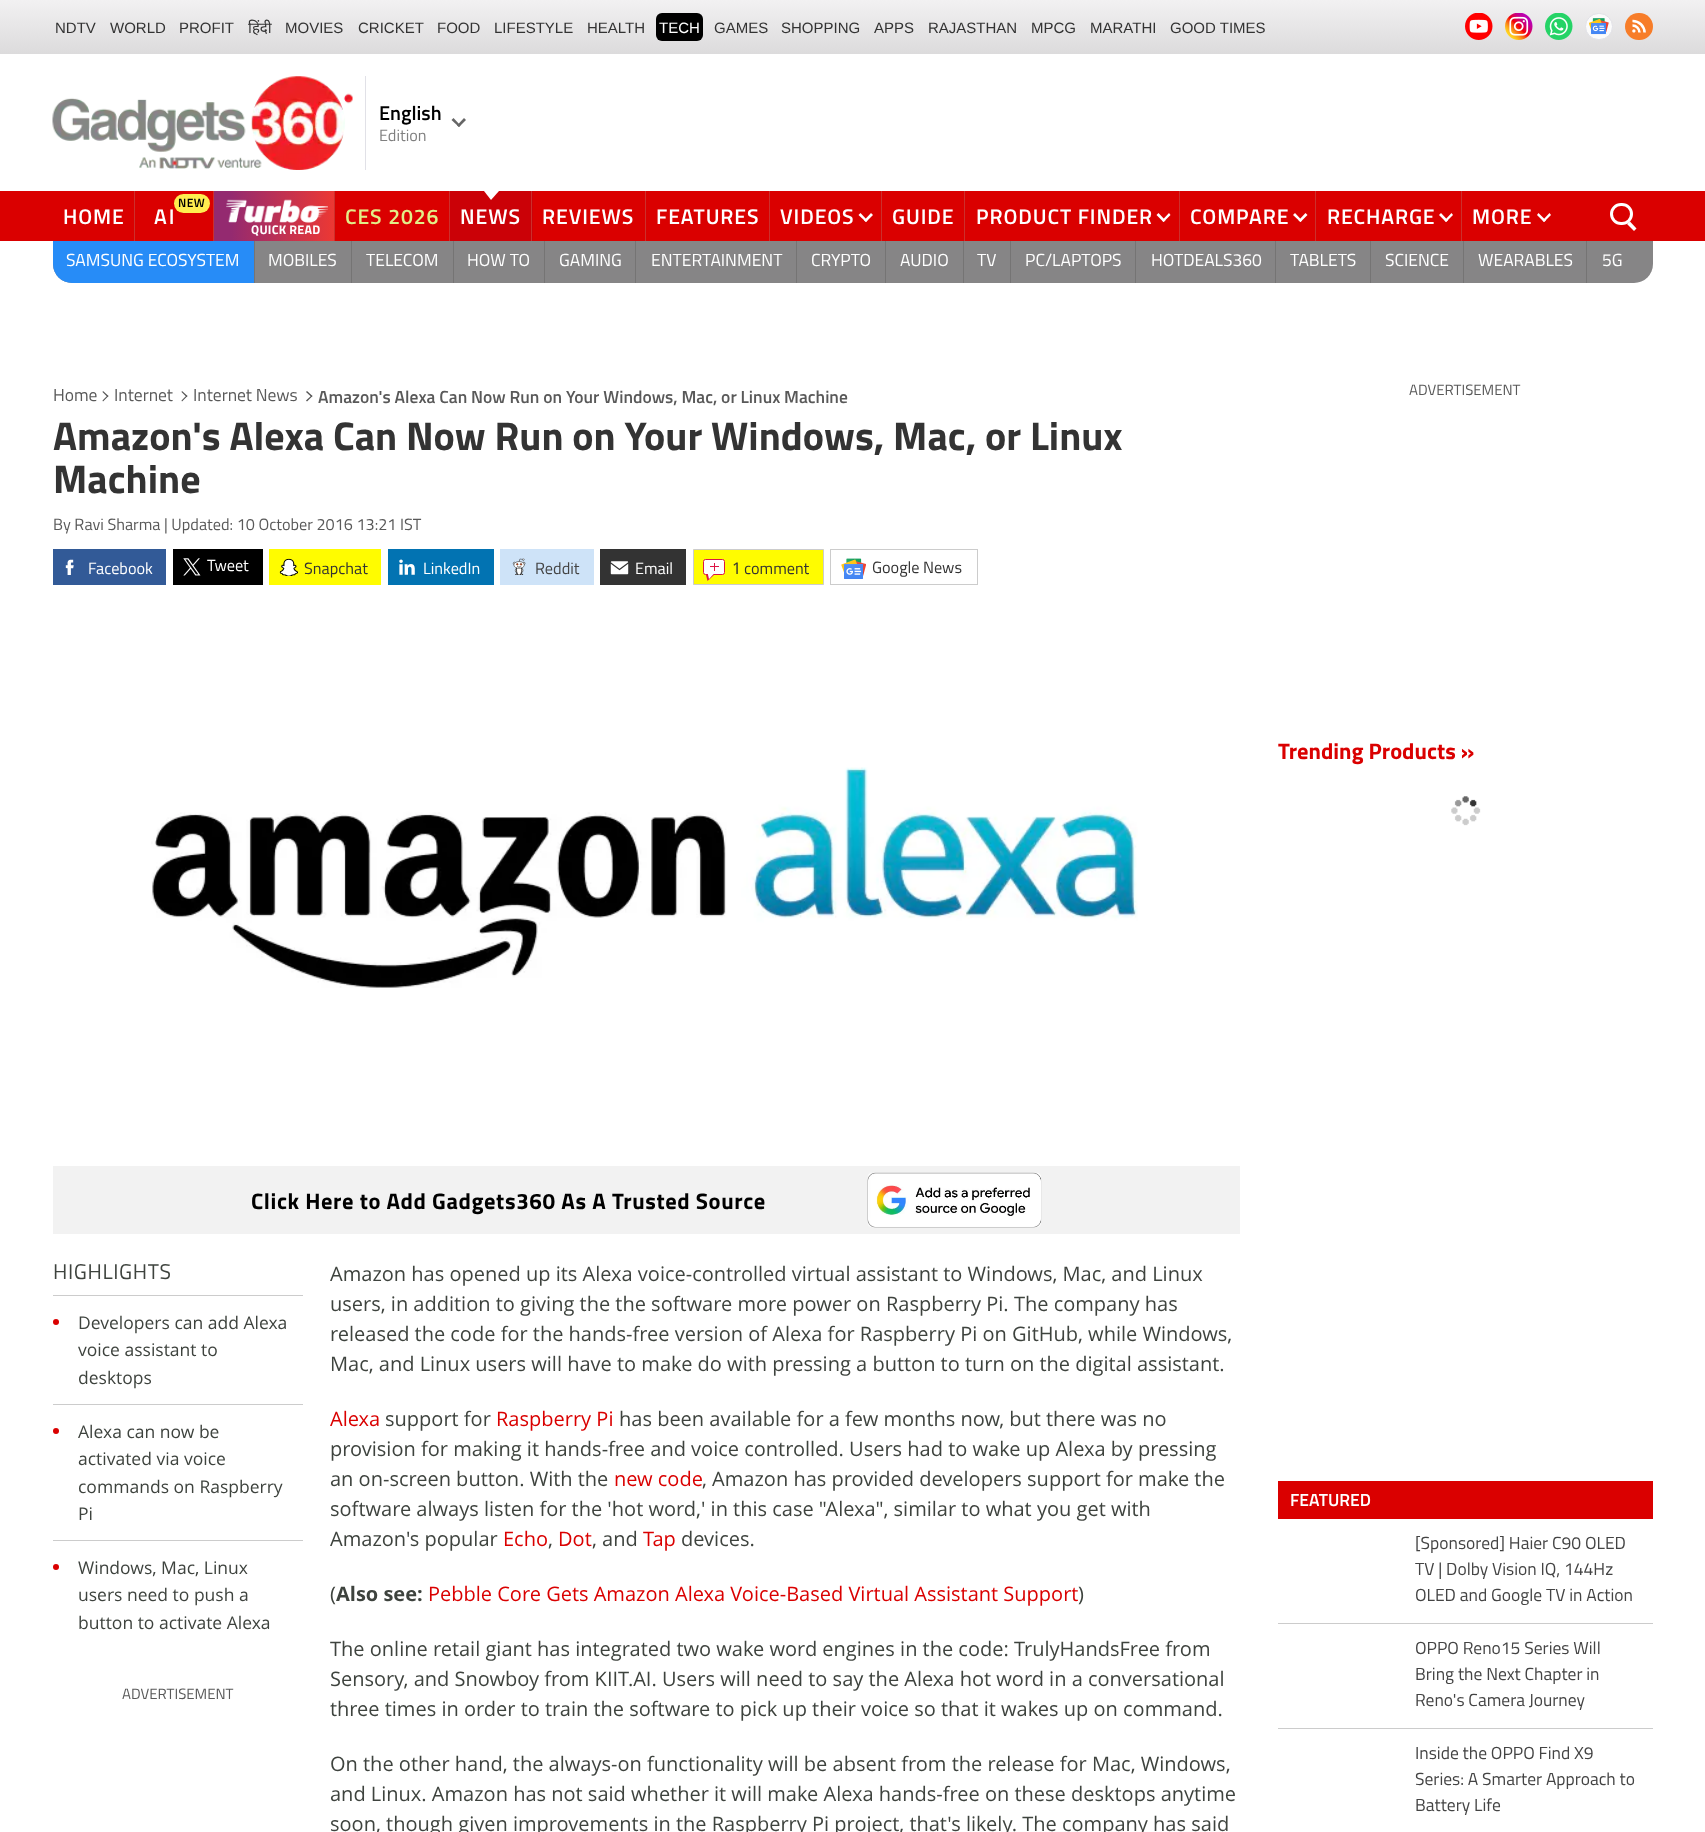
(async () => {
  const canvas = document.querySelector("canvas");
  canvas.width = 1705;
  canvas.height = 1832;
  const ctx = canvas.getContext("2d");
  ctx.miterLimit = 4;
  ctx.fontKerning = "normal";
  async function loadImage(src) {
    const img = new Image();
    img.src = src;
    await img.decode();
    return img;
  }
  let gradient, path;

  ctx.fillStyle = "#ffffff";
  ctx.fillRect(0, 0, 1705, 1832);
  gradient = ctx.createLinearGradient(853, 0, 853, 54);
  gradient.addColorStop(0, "#f2f1f2");
  gradient.addColorStop(1, "#dcdbdc");
  ctx.fillStyle = gradient;
  ctx.fillRect(0, 0, 1705, 54);
  ctx.fillStyle = "#000000";
  ctx.beginPath();
  ctx.roundRect(656, 13, 47, 28, 6);
  ctx.fill();
  ctx.drawImage(await loadImage("img/1.png"), 1465, 13, 28, 27);
  ctx.drawImage(await loadImage("img/2.png"), 1505, 13, 28, 27);
  ctx.drawImage(await loadImage("img/3.png"), 1545, 13, 28, 27);
  ctx.fillStyle = "#fbfbfb";
  ctx.beginPath();
  ctx.roundRect(1585.5, 13.5, 27, 26, 13);
  ctx.fill();
  ctx.strokeStyle = "#e1e1e7";
  ctx.stroke();
  ctx.drawImage(await loadImage("img/4.png"), 1589, 18, 20, 17);
  ctx.fillStyle = "#f77d29";
  ctx.beginPath();
  ctx.roundRect(1625, 13, 28, 27, 13.5);
  ctx.fill();
  ctx.drawImage(await loadImage("img/5.png"), 1632, 19, 14, 14);
  ctx.fillStyle = "#e1e1e7";
  ctx.fillRect(365, 76, 1, 94);
  ctx.drawImage(await loadImage("img/6.png"), 52, 76, 301, 94);
  ctx.fillStyle = "#666666";
  path = new Path2D("M466 120L459 127L457 125.5L464 118Z");
  ctx.fill(path);
  path = new Path2D("M460.5 125.5L459 127L451.5 120L453.5 118Z");
  ctx.fill(path);
  for (const [x, y, w, h, color] of [
    [0, 191, 1705, 50, "#da0000"],
    [134, 191, 1, 50, "#cc2f2c"],
    [213, 191, 1, 50, "#cc2f2c"],
  ]) {
    ctx.fillStyle = color;
    ctx.fillRect(x, y, w, h);
  }
  ctx.fillStyle = "#ffed4f";
  ctx.beginPath();
  ctx.roundRect(174, 194, 36, 19, 9.5);
  ctx.fill();
  for (const [x, y, w, h, color] of [
    [449, 191, 1, 50, "#cc2f2c"],
    [450, 191, 83, 50, "#cb0107"],
    [531, 191, 1, 50, "#cc2f2c"],
  ]) {
    ctx.fillStyle = color;
    ctx.fillRect(x, y, w, h);
  }
  ctx.fillStyle = "#ffffff";
  path = new Path2D("M484 191H499L491 200Z");
  ctx.fill(path);
  for (const [x, y, w, h, color] of [
    [645, 191, 1, 50, "#cc2f2c"],
    [769, 191, 1, 50, "#cc2f2c"],
    [881, 191, 1, 50, "#cc2f2c"],
  ]) {
    ctx.fillStyle = color;
    ctx.fillRect(x, y, w, h);
  }
  ctx.fillStyle = "#ffffff";
  path = new Path2D("M873 215L866 222L864 220.5L871 213Z");
  ctx.fill(path);
  path = new Path2D("M867.5 220.5L866 222L858.5 215L860.5 213Z");
  ctx.fill(path);
  ctx.fillStyle = "#cc2f2c";
  ctx.fillRect(964, 191, 1, 50);
  ctx.fillRect(1179, 191, 1, 50);
  ctx.fillStyle = "#ffffff";
  path = new Path2D("M1170.5 215L1163.5 222L1162 220.5L1169 213Z");
  ctx.fill(path);
  path = new Path2D("M1165.5 220.5L1163.5 222L1156.5 215L1158.5 213Z");
  ctx.fill(path);
  ctx.fillStyle = "#cc2f2c";
  ctx.fillRect(1315, 191, 1, 50);
  ctx.fillStyle = "#ffffff";
  path = new Path2D("M1307.5 215L1300.5 222L1298.5 220.5L1305.5 213Z");
  ctx.fill(path);
  path = new Path2D("M1302 220.5L1300.5 222L1293 215L1295 213Z");
  ctx.fill(path);
  ctx.fillStyle = "#cc2f2c";
  ctx.fillRect(1461, 191, 1, 50);
  ctx.fillStyle = "#ffffff";
  path = new Path2D("M1453 215L1446 222L1444.5 220.5L1451.5 213Z");
  ctx.fill(path);
  path = new Path2D("M1448 220.5L1446 222L1439 215L1441 213Z");
  ctx.fill(path);
  path = new Path2D("M1551 215L1544 222L1542.5 220.5L1549.5 213Z");
  ctx.fill(path);
  path = new Path2D("M1546 220.5L1544 222L1537 215L1538.5 213Z");
  ctx.fill(path);
  gradient = ctx.createLinearGradient(214, 216, 335, 216);
  gradient.addColorStop(0.14, "#942a70");
  gradient.addColorStop(1, "#ed3833");
  ctx.fillStyle = gradient;
  ctx.fillRect(214, 191, 120, 50);
  ctx.fillStyle = "#cc2f2c";
  ctx.fillRect(334, 191, 1, 50);
  ctx.drawImage(await loadImage("img/7.png"), 226, 199, 102, 24);
  ctx.beginPath();
  ctx.roundRect(1611.5, 204.5, 20, 19, 9.5);
  ctx.strokeStyle = "#ffffff";
  ctx.lineWidth = 3;
  ctx.stroke();
  ctx.fillStyle = "#ffffff";
  path = new Path2D("M1627 224L1630 221.5L1636.5 228.5L1634 231Z");
  ctx.fill(path);
  ctx.fillStyle = "#868586";
  ctx.beginPath();
  ctx.roundRect(53, 241, 1600, 42, [0, 0, 19, 19]);
  ctx.fill();
  ctx.fillStyle = "#278cf7";
  ctx.beginPath();
  ctx.roundRect(53, 241, 202, 42, [0, 0, 0, 19]);
  ctx.fill();
  for (const [x, y, w, h, color] of [
    [254, 241, 1, 42, "#757474"],
    [351, 241, 1, 42, "#757474"],
    [453, 241, 1, 42, "#757474"],
    [544, 241, 1, 42, "#757474"],
    [635, 241, 1, 42, "#757474"],
    [796, 241, 1, 42, "#757474"],
    [885, 241, 1, 42, "#757474"],
    [963, 241, 1, 42, "#757474"],
    [1010, 241, 1, 42, "#757474"],
    [1135, 241, 1, 42, "#757474"],
    [1275, 241, 1, 42, "#757474"],
    [1370, 241, 1, 42, "#757474"],
    [1463, 241, 1, 42, "#757474"],
    [1586, 241, 1, 42, "#757474"],
  ]) {
    ctx.fillStyle = color;
    ctx.fillRect(x, y, w, h);
  }
  ctx.fillStyle = "#545454";
  path = new Path2D("M103 391L108.5 396L107.5 397L102.5 392Z");
  ctx.fill(path);
  path = new Path2D("M107.5 395.5L108.5 396L103 401.5L102.5 400.5Z");
  ctx.fill(path);
  path = new Path2D("M182 391L187.5 396L186.5 397L181.5 392Z");
  ctx.fill(path);
  path = new Path2D("M186.5 395.5L187.5 396L182 401.5L181.5 400.5Z");
  ctx.fill(path);
  path = new Path2D("M307 391L312.5 396L311.5 397L306 392Z");
  ctx.fill(path);
  path = new Path2D("M311.5 395.5L312.5 396L307 401.5L306 400.5Z");
  ctx.fill(path);
  ctx.fillStyle = "#325a97";
  ctx.fillRect(53, 549, 113, 36);
  ctx.drawImage(await loadImage("img/8.png"), 65, 559, 9, 16);
  ctx.fillStyle = "#000000";
  ctx.fillRect(173, 549, 90, 36);
  ctx.drawImage(await loadImage("img/9.png"), 183, 558, 18, 18);
  ctx.fillStyle = "#fffc00";
  ctx.fillRect(269, 549, 112, 36);
  ctx.drawImage(await loadImage("img/10.png"), 279, 558, 19, 18);
  ctx.fillStyle = "#0273b2";
  ctx.fillRect(388, 549, 106, 36);
  ctx.drawImage(await loadImage("img/11.png"), 399, 559, 16, 16);
  ctx.fillStyle = "#cee3f8";
  ctx.fillRect(500, 549, 94, 36);
  ctx.drawImage(await loadImage("img/12.png"), 512, 558, 14, 17);
  ctx.fillStyle = "#333333";
  ctx.fillRect(600, 549, 86, 36);
  ctx.drawImage(await loadImage("img/13.png"), 610, 561, 19, 14);
  ctx.fillStyle = "#fffc00";
  ctx.beginPath();
  ctx.rect(693.5, 549.5, 130, 35);
  ctx.fill();
  ctx.strokeStyle = "#cccccc";
  ctx.lineWidth = 1;
  ctx.stroke();
  ctx.fillStyle = "#ffffff";
  ctx.beginPath();
  ctx.roundRect(703.5, 559.5, 21, 15, 2);
  ctx.fill();
  ctx.strokeStyle = "#dc1643";
  ctx.stroke();
  ctx.fillStyle = "#dc1643";
  path = new Path2D("M706 575H714L707.5 581Z");
  ctx.fill(path);
  ctx.fillStyle = "#ffffff";
  path = new Path2D("M707.5 572.5H715L709 579Z");
  ctx.fill(path);
  ctx.fillStyle = "#dd1543";
  ctx.fillRect(710, 566, 9, 1);
  ctx.fillRect(714, 563, 1, 8);
  ctx.strokeStyle = "#cccccc";
  ctx.strokeRect(830.5, 549.5, 147, 35);
  ctx.drawImage(await loadImage("img/14.png"), 841, 558, 25, 21);
  ctx.drawImage(await loadImage("img/15.png"), 151, 767, 987, 221);
  ctx.fillStyle = "#f2f2f2";
  ctx.fillRect(53, 1166, 1187, 68);
  ctx.drawImage(await loadImage("img/16.png"), 867, 1172, 175, 56);
  ctx.fillStyle = "#cccccc";
  ctx.fillRect(53, 1295, 250, 1);
  ctx.fillRect(53, 1404, 250, 1);
  ctx.fillStyle = "#da0000";
  ctx.beginPath();
  ctx.arc(56, 1322, 3, 0, Math.PI * 2);
  ctx.fill();
  ctx.fillStyle = "#cccccc";
  ctx.fillRect(53, 1540, 250, 1);
  ctx.fillStyle = "#da0000";
  ctx.beginPath();
  ctx.arc(56, 1431, 3, 0, Math.PI * 2);
  ctx.fill();
  ctx.beginPath();
  ctx.arc(56, 1567, 3, 0, Math.PI * 2);
  ctx.fill();
  ctx.drawImage(await loadImage("img/17.png"), 1451, 796, 30, 30);
  for (const [x, y, w, h, color] of [
    [1278, 1481, 375, 38, "#da0000"],
    [1278, 1623, 375, 1, "#cccccc"],
    [1278, 1728, 375, 1, "#cccccc"],
  ]) {
    ctx.fillStyle = color;
    ctx.fillRect(x, y, w, h);
  }
  ctx.font = "15px Liberation Sans";
  ctx.fillStyle = "#333333";
  for (const [text, x, y] of [
    ["NDTV", 55, 33],
    ["WORLD", 110, 33],
    ["PROFIT", 179, 33],
  ]) {
    ctx.fillText(text, x, y);
  }
  ctx.font = "15px Noto Sans";
  ctx.fillText("हिंदी", 248, 33);
  ctx.font = "15px Liberation Sans";
  for (const [text, x, y] of [
    ["MOVIES", 285, 33],
    ["CRICKET", 358, 33],
    ["FOOD", 437, 33],
    ["LIFESTYLE", 494, 33],
    ["HEALTH", 587, 33],
  ]) {
    ctx.fillText(text, x, y);
  }
  ctx.fillStyle = "#ffffff";
  ctx.fillText("TECH", 659, 33);
  ctx.fillStyle = "#333333";
  for (const [text, x, y] of [
    ["GAMES", 714, 33],
    ["SHOPPING", 781, 33],
    ["APPS", 874, 33],
    ["RAJASTHAN", 928, 33],
    ["MPCG", 1031, 33],
    ["MARATHI", 1090, 33],
    ["GOOD TIMES", 1170, 33],
  ]) {
    ctx.fillText(text, x, y);
  }
  ctx.font = "600 20px Titillium Web";
  ctx.fillStyle = "#000000";
  ctx.fillText("English", 379, 120);
  ctx.font = "16.25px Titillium";
  ctx.fillStyle = "#808080";
  ctx.fillText("Edition", 379, 141);
  ctx.letterSpacing = "0.9px";
  ctx.font = "600 21.25px Titillium Web";
  ctx.fillStyle = "#ffffff";
  ctx.fillText("HOME", 63, 224);
  ctx.letterSpacing = "0.5px";
  ctx.font = "600 12px Titillium Web";
  ctx.fillStyle = "#000000";
  ctx.fillText("NEW", 178, 207);
  ctx.letterSpacing = "2px";
  ctx.font = "600 21.25px Titillium Web";
  ctx.fillStyle = "#ffffff";
  ctx.fillText("AI", 154, 224);
  ctx.letterSpacing = "0.9px";
  ctx.fillStyle = "#e2ef88";
  ctx.fillText("CES 2026", 345, 224);
  ctx.fillStyle = "#ffffff";
  for (const [text, x, y] of [
    ["NEWS", 460, 224],
    ["REVIEWS", 542, 224],
    ["FEATURES", 656, 224],
    ["VIDEOS", 780, 224],
    ["GUIDE", 892, 224],
    ["PRODUCT FINDER", 976, 224],
    ["COMPARE", 1190, 224],
    ["RECHARGE", 1327, 224],
    ["MORE", 1472, 224],
  ]) {
    ctx.fillText(text, x, y);
  }
  ctx.letterSpacing = "0.25px";
  ctx.font = "bold 12.5px Titillium";
  ctx.fillText("QUICK READ", 251, 234);
  ctx.letterSpacing = "0px";
  ctx.font = "17.5px Titillium";
  for (const [text, x, y] of [
    ["SAMSUNG ECOSYSTEM", 66, 266],
    ["MOBILES", 268, 266],
    ["TELECOM", 366, 266],
    ["HOW TO", 467, 266],
    ["GAMING", 559, 266],
    ["ENTERTAINMENT", 651, 266],
    ["CRYPTO", 811, 266],
    ["AUDIO", 900, 266],
    ["TV", 977, 266],
    ["PC/LAPTOPS", 1025, 266],
    ["HOTDEALS360", 1151, 266],
    ["TABLETS", 1290, 266],
    ["SCIENCE", 1385, 266],
    ["WEARABLES", 1478, 266],
    ["5G", 1602, 266],
  ]) {
    ctx.fillText(text, x, y);
  }
  ctx.fillStyle = "#595959";
  for (const [text, x, y] of [
    ["Home", 53, 401],
    ["Internet", 114, 401],
    ["Internet News", 193, 401],
  ]) {
    ctx.fillText(text, x, y);
  }
  ctx.font = "600 17.5px Titillium Web";
  ctx.fillText("Amazon's Alexa Can Now Run on Your Windows, Mac, or Linux Machine", 318, 403);
  ctx.font = "bold 40px Titillium";
  ctx.fillStyle = "#333333";
  ctx.fillText("Amazon's Alexa Can Now Run on Your Windows, Mac, or Linux", 53, 450);
  ctx.fillText("Machine", 53, 493);
  ctx.font = "16.25px Titillium";
  ctx.fillStyle = "#595959";
  ctx.fillText("By Ravi Sharma | Updated: 10 October 2016 13:21 IST", 53, 530);
  ctx.fillStyle = "#ffffff";
  ctx.fillText("Facebook", 88, 574);
  ctx.fillText("Tweet", 207, 571);
  ctx.fillStyle = "#333333";
  ctx.fillText("Snapchat", 304, 574);
  ctx.fillStyle = "#ffffff";
  ctx.fillText("LinkedIn", 423, 574);
  ctx.fillStyle = "#444444";
  ctx.fillText("Reddit", 535, 574);
  ctx.fillStyle = "#ffffff";
  ctx.fillText("Email", 635, 574);
  ctx.font = "16.25px Noto Sans";
  ctx.fillStyle = "#333333";
  ctx.fillText("1", 732, 574);
  ctx.font = "16.25px Titillium";
  ctx.fillText("comment", 744, 574);
  ctx.fillText("Google News", 872, 573);
  ctx.letterSpacing = "0.6px";
  ctx.font = "bold 22.5px Titillium";
  ctx.fillStyle = "#000000";
  ctx.fillText("Click Here to Add Gadgets360 As A Trusted Source", 251, 1209);
  ctx.font = "21.25px Titillium";
  ctx.fillStyle = "#3e433e";
  ctx.fillText("HIGHLIGHTS", 53, 1279);
  ctx.letterSpacing = "0px";
  ctx.font = "17.5px Open Sans";
  for (const [text, x, y] of [
    ["Developers can add Alexa", 78, 1329],
    ["voice assistant to", 78, 1356],
    ["desktops", 78, 1384],
    ["Alexa can now be", 78, 1438],
    ["activated via voice", 78, 1465],
    ["commands on Raspberry", 78, 1493],
    ["Pi", 78, 1520],
    ["Windows, Mac, Linux", 78, 1574],
    ["users need to push a", 78, 1601],
    ["button to activate Alexa", 78, 1629],
  ]) {
    ctx.fillText(text, x, y);
  }
  ctx.font = "15px Titillium";
  ctx.fillStyle = "#595959";
  ctx.fillText("ADVERTISEMENT", 122, 1699);
  ctx.font = "20px Open Sans";
  ctx.fillStyle = "#3e433e";
  for (const [text, x, y] of [
    ["Amazon has opened up its Alexa voice-controlled virtual assistant to Windows, Mac, and Linux", 330, 1281],
    ["users, in addition to giving the the software more power on Raspberry Pi. The company has", 330, 1311],
    ["released the code for the hands-free version of Alexa for Raspberry Pi on GitHub, while Windows,", 330, 1341],
    ["Mac, and Linux users will have to make do with pressing a button to turn on the digital assistant.", 330, 1371],
  ]) {
    ctx.fillText(text, x, y);
  }
  ctx.fillStyle = "#da0000";
  ctx.fillText("Alexa", 330, 1426);
  ctx.fillStyle = "#3e433e";
  ctx.fillText("support for", 385, 1426);
  ctx.fillStyle = "#da0000";
  ctx.fillText("Raspberry Pi", 496, 1426);
  ctx.fillStyle = "#3e433e";
  for (const [text, x, y] of [
    ["has been available for a few months now, but there was no", 619, 1426],
    ["provision for making it hands-free and voice controlled. Users had to wake up Alexa by pressing", 330, 1456],
    ["an on-screen button. With the", 330, 1486],
  ]) {
    ctx.fillText(text, x, y);
  }
  ctx.fillStyle = "#da0000";
  ctx.fillText("new code", 614, 1486);
  ctx.fillStyle = "#3e433e";
  for (const [text, x, y] of [
    [", Amazon has provided developers support for make the", 702, 1486],
    ["software always listen for the 'hot word,' in this case \"Alexa\", similar to what you get with", 330, 1516],
    ["Amazon's popular", 330, 1546],
  ]) {
    ctx.fillText(text, x, y);
  }
  ctx.fillStyle = "#da0000";
  ctx.fillText("Echo", 503, 1546);
  ctx.fillStyle = "#3e433e";
  ctx.fillText(",", 548, 1546);
  ctx.fillStyle = "#da0000";
  ctx.fillText("Dot", 558, 1546);
  ctx.fillStyle = "#3e433e";
  ctx.fillText(", and", 592, 1546);
  ctx.fillStyle = "#da0000";
  ctx.fillText("Tap", 643, 1546);
  ctx.fillStyle = "#3e433e";
  ctx.fillText("devices.", 681, 1546);
  ctx.fillText("(", 330, 1601);
  ctx.font = "bold 20px Open Sans";
  ctx.fillText("Also see:", 336, 1601);
  ctx.font = "20px Open Sans";
  ctx.fillStyle = "#da0000";
  ctx.fillText("Pebble Core Gets Amazon Alexa Voice-Based Virtual Assistant Support", 428, 1601);
  ctx.fillStyle = "#3e433e";
  for (const [text, x, y] of [
    [")", 1078, 1601],
    ["The online retail giant has integrated two wake word engines in the code: TrulyHandsFree from", 330, 1656],
    ["Sensory, and Snowboy from KIIT.AI. Users will need to say the Alexa hot word in a conversational", 330, 1686],
    ["three times in order to train the software to pick up their voice so that it wakes up on command.", 330, 1716],
    ["On the other hand, the always-on functionality will be absent from the release for Mac, Windows,", 330, 1771],
    ["and Linux. Amazon has not said whether it will make Alexa hands-free on these desktops anytime", 330, 1801],
    ["soon, though given improvements in the Raspberry Pi project, that's likely. The company has said", 330, 1831],
  ]) {
    ctx.fillText(text, x, y);
  }
  ctx.font = "15px Titillium";
  ctx.fillStyle = "#595959";
  ctx.fillText("ADVERTISEMENT", 1409, 395);
  ctx.font = "bold 22.5px Titillium";
  ctx.fillStyle = "#da0000";
  ctx.fillText("Trending Products »", 1278, 759);
  ctx.font = "600 17.5px Titillium Web";
  ctx.fillStyle = "#ffffff";
  ctx.fillText("FEATURED", 1290, 1506);
  ctx.font = "17.5px Titillium";
  ctx.fillStyle = "#444444";
  for (const [text, x, y] of [
    ["[Sponsored] Haier C90 OLED", 1415, 1549],
    ["TV | Dolby Vision IQ, 144Hz", 1415, 1575],
    ["OLED and Google TV in Action", 1415, 1601],
    ["OPPO Reno15 Series Will", 1415, 1654],
    ["Bring the Next Chapter in", 1415, 1680],
    ["Reno's Camera Journey", 1415, 1706],
    ["Inside the OPPO Find X9", 1415, 1759],
    ["Series: A Smarter Approach to", 1415, 1785],
    ["Battery Life", 1415, 1811],
  ]) {
    ctx.fillText(text, x, y);
  }
})();
